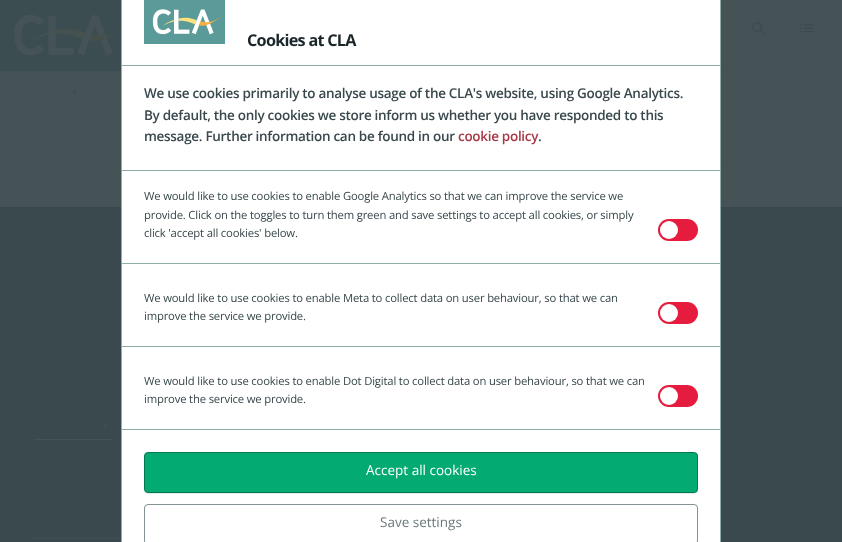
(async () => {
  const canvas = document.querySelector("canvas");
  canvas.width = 842;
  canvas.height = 542;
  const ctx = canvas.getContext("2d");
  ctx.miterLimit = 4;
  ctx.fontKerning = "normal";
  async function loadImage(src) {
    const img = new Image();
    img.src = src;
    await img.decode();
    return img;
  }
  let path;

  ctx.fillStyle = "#455357";
  ctx.fillRect(0, 0, 842, 542);
  ctx.fillStyle = "#445154";
  ctx.fillRect(0, 71, 842, 1);
  ctx.drawImage(await loadImage("img/1.png"), 0, 0, 121, 71);
  ctx.drawImage(await loadImage("img/2.png"), 752, 22, 13, 13);
  ctx.drawImage(await loadImage("img/3.png"), 799, 24, 16, 9);
  for (const [x, y, w, h, color] of [
    [0, 163, 842, 1, "#445154"],
    [0, 208, 842, 334, "#3a494d"],
    [0, 207, 842, 1, "#39484c"],
  ]) {
    ctx.fillStyle = color;
    ctx.fillRect(x, y, w, h);
  }
  ctx.fillStyle = "#ffffff";
  path = new Path2D("M125-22H720V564C720 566 719 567 717 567H125C123 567 122 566 122 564V-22Z");
  ctx.fill(path);
  ctx.fillStyle = "#8faeaa";
  path = new Path2D("M721 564V-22L720-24V-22V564L719 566L720 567Z");
  ctx.fill(path);
  path = new Path2D("M121-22V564L122 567L123 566L122 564V-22V-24Z");
  ctx.fill(path);
  ctx.drawImage(await loadImage("img/4.png"), 144, 0, 81, 44);
  ctx.fillRect(122, 65, 598, 1);
  ctx.fillRect(122, 170, 598, 1);
  ctx.fillStyle = "#e51c3e";
  ctx.beginPath();
  ctx.roundRect(658, 219, 40, 22, 11);
  ctx.fill();
  ctx.fillStyle = "#ffffff";
  ctx.beginPath();
  ctx.arc(669, 230, 9, 0, Math.PI * 2);
  ctx.fill();
  ctx.fillStyle = "#8faeaa";
  ctx.fillRect(122, 263, 598, 1);
  ctx.fillStyle = "#e51c3e";
  ctx.beginPath();
  ctx.roundRect(658, 302, 40, 22, 11);
  ctx.fill();
  ctx.fillStyle = "#ffffff";
  ctx.beginPath();
  ctx.arc(669, 313, 9, 0, Math.PI * 2);
  ctx.fill();
  ctx.fillStyle = "#8faeaa";
  ctx.fillRect(122, 346, 598, 1);
  ctx.fillStyle = "#e51c3e";
  ctx.beginPath();
  ctx.roundRect(658, 385, 40, 22, 11);
  ctx.fill();
  ctx.fillStyle = "#ffffff";
  ctx.beginPath();
  ctx.arc(669, 396, 9, 0, Math.PI * 2);
  ctx.fill();
  ctx.fillStyle = "#8faeaa";
  ctx.fillRect(122, 429, 598, 1);
  ctx.fillStyle = "rgba(143, 174, 170, 0.24)";
  ctx.filter = "blur(0.5px)";
  ctx.beginPath();
  ctx.roundRect(144, 453, 554, 41, 4);
  ctx.fill();
  ctx.filter = "none";
  ctx.fillStyle = "#03ab73";
  ctx.beginPath();
  ctx.roundRect(144.5, 452.5, 553, 40, 3.5);
  ctx.fill();
  ctx.strokeStyle = "#027951";
  ctx.stroke();
  ctx.fillStyle = "rgba(143, 174, 170, 0.24)";
  ctx.filter = "blur(0.5px)";
  ctx.beginPath();
  ctx.roundRect(144, 505, 554, 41, 4);
  ctx.fill();
  ctx.filter = "none";
  ctx.fillStyle = "#ffffff";
  ctx.beginPath();
  ctx.roundRect(144.5, 504.5, 553, 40, 3.5);
  ctx.fill();
  ctx.strokeStyle = "#839295";
  ctx.stroke();
  ctx.drawImage(await loadImage("img/5.png"), 72, 88, 5, 6);
  ctx.fillStyle = "#455357";
  ctx.fillRect(34, 439, 78, 1);
  ctx.drawImage(await loadImage("img/6.png"), 103, 423, 4, 7);
  ctx.fillStyle = "#404f53";
  ctx.fillRect(34, 538, 87, 1);
  ctx.letterSpacing = "-0.75px";
  ctx.font = "bold 16.25px Open Sans";
  ctx.fillStyle = "#1a2629";
  ctx.fillText("Cookies at CLA", 247, 46);
  ctx.letterSpacing = "-0.3px";
  ctx.font = "600 13.5px Open Sans";
  ctx.fillStyle = "#39484c";
  for (const [text, x, y] of [
    ["We use cookies primarily to analyse usage of the CLA's website, using Google Analytics.", 144, 98],
    ["By default, the only cookies we store inform us whether you have responded to this", 144, 120],
    ["message. Further information can be found in our", 144, 141],
  ]) {
    ctx.fillText(text, x, y);
  }
  ctx.fillStyle = "#a83845";
  ctx.fillText("cookie policy", 458, 141);
  ctx.fillStyle = "#39484c";
  ctx.fillText(".", 538, 141);
  ctx.letterSpacing = "-0.18px";
  ctx.font = "11.3px Open Sans";
  for (const [text, x, y] of [
    ["We would like to use cookies to enable Google Analytics so that we can improve the service we", 144, 200],
    ["provide. Click on the toggles to turn them green and save settings to accept all cookies, or simply", 144, 219],
    ["click 'accept all cookies' below.", 144, 237],
    ["We would like to use cookies to enable Meta to collect data on user behaviour, so that we can", 144, 302],
    ["improve the service we provide.", 144, 320],
    ["We would like to use cookies to enable Dot Digital to collect data on user behaviour, so that we can", 144, 385],
    ["improve the service we provide.", 144, 403],
  ]) {
    ctx.fillText(text, x, y);
  }
  ctx.letterSpacing = "0px";
  ctx.font = "13.5px Open Sans";
  ctx.fillStyle = "#ffffff";
  ctx.fillText("Accept all cookies", 366, 475);
  ctx.fillStyle = "#6a797c";
  ctx.fillText("Save settings", 380, 527);
})();
